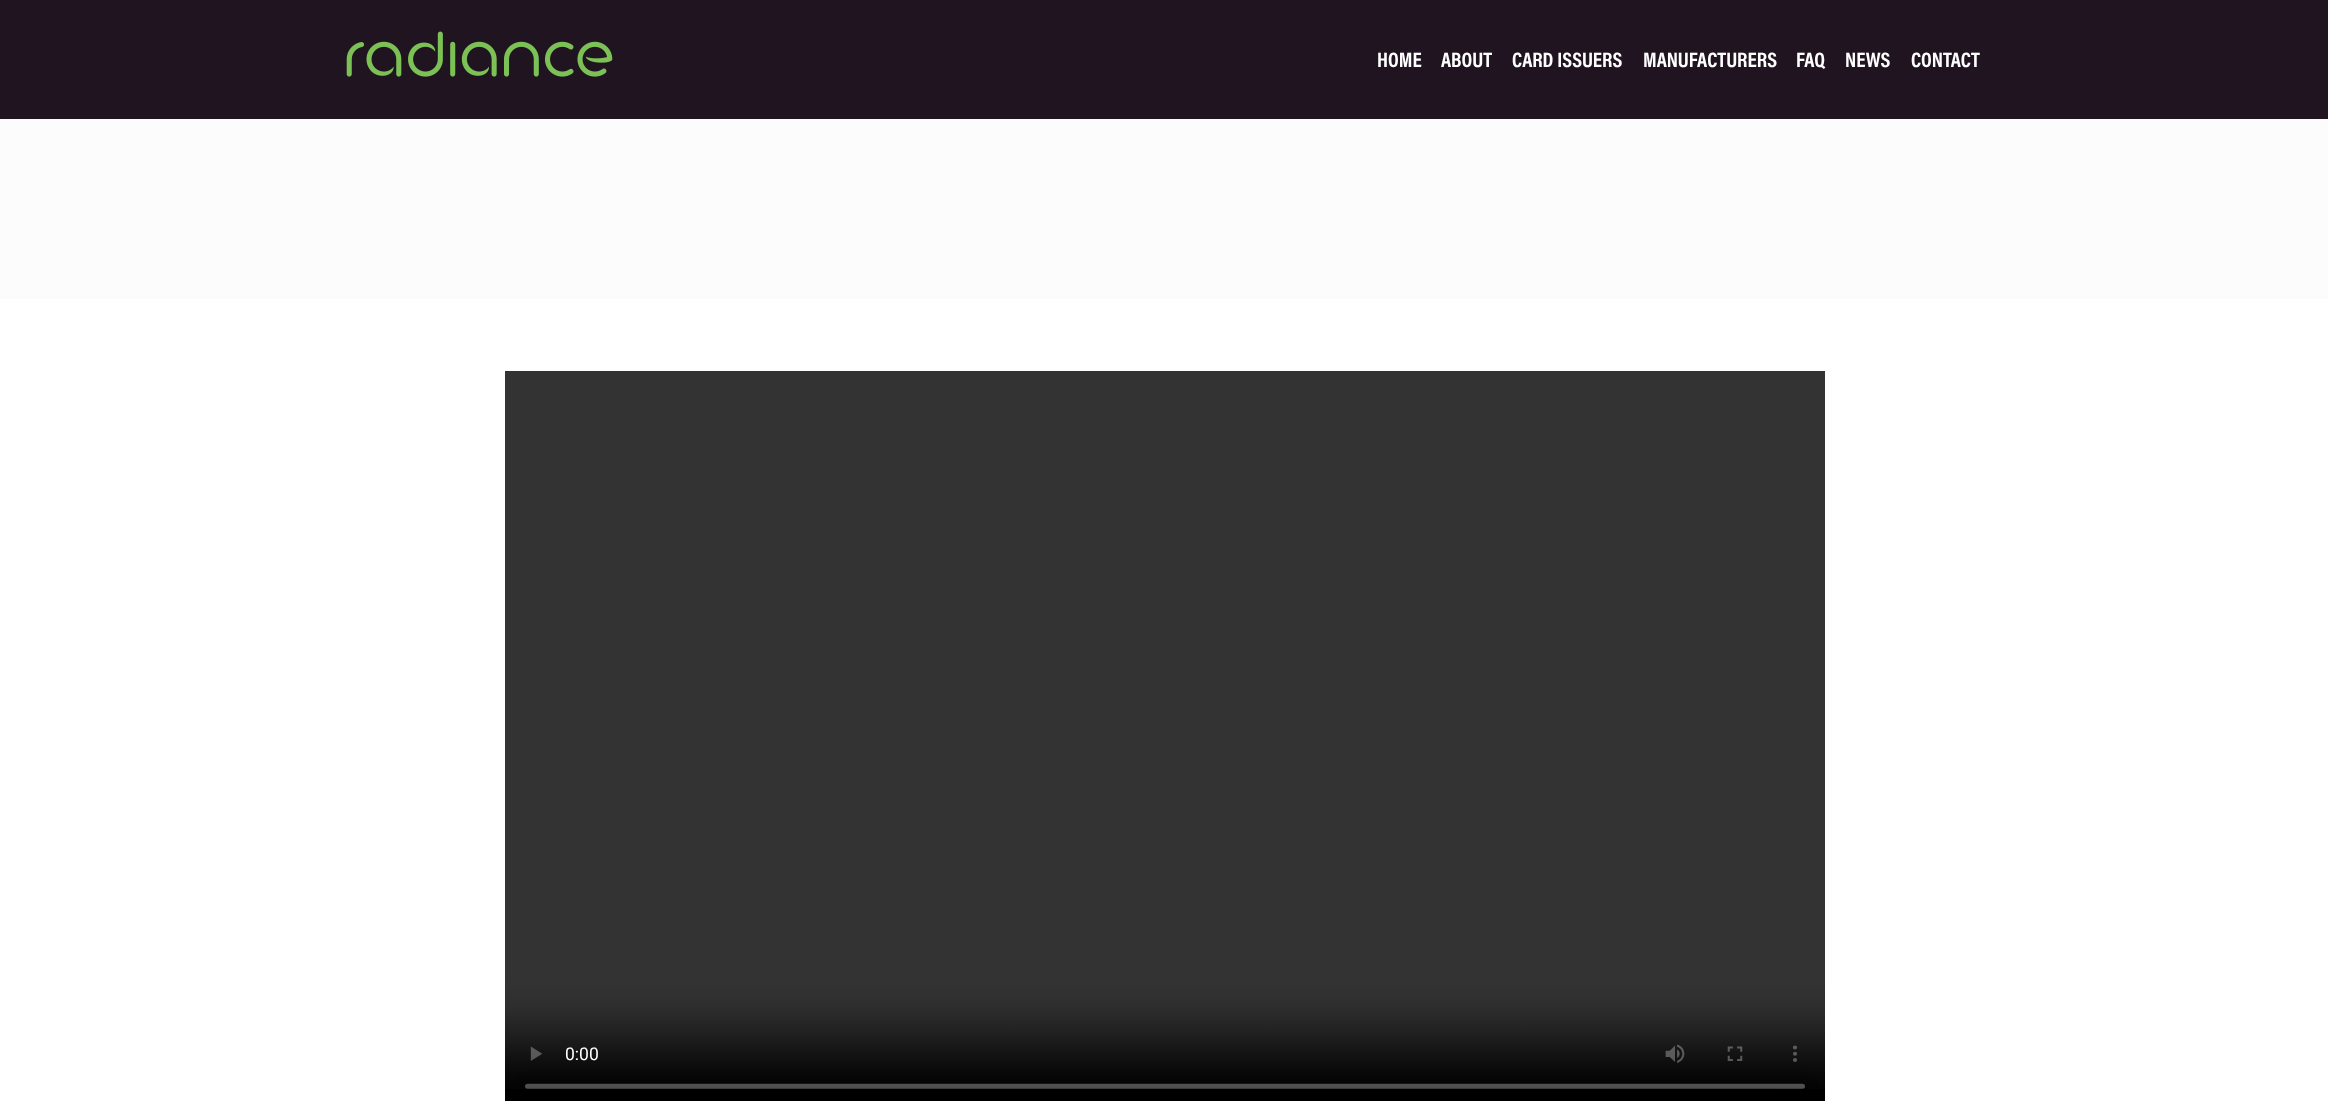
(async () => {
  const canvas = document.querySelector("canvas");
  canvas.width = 2328;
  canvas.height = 1101;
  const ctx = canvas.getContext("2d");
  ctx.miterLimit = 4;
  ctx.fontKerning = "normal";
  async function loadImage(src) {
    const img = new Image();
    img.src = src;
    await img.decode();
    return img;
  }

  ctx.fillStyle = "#ffffff";
  ctx.fillRect(0, 0, 2328, 1101);
  ctx.fillStyle = "#201420";
  ctx.fillRect(0, 0, 2328, 119);
  ctx.drawImage(await loadImage("img/1.png"), 346, 31, 267, 46);
  ctx.fillStyle = "#fcfcfd";
  ctx.fillRect(0, 119, 2328, 180);
  ctx.fillStyle = "#000000";
  ctx.fillRect(505, 1089, 1320, 12);
  ctx.drawImage(await loadImage("img/2.png"), 505, 371, 1320, 718);
  ctx.font = "bold 21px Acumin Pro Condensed";
  ctx.fillStyle = "#ffffff";
  for (const [text, x, y] of [
    ["HOME", 1377, 67],
    ["ABOUT", 1441, 67],
    ["CARD ISSUERS", 1512, 67],
    ["MANUFACTURERS", 1643, 67],
    ["FAQ", 1796, 67],
    ["NEWS", 1845, 67],
    ["CONTACT", 1911, 67],
  ]) {
    ctx.fillText(text, x, y);
  }
})();
